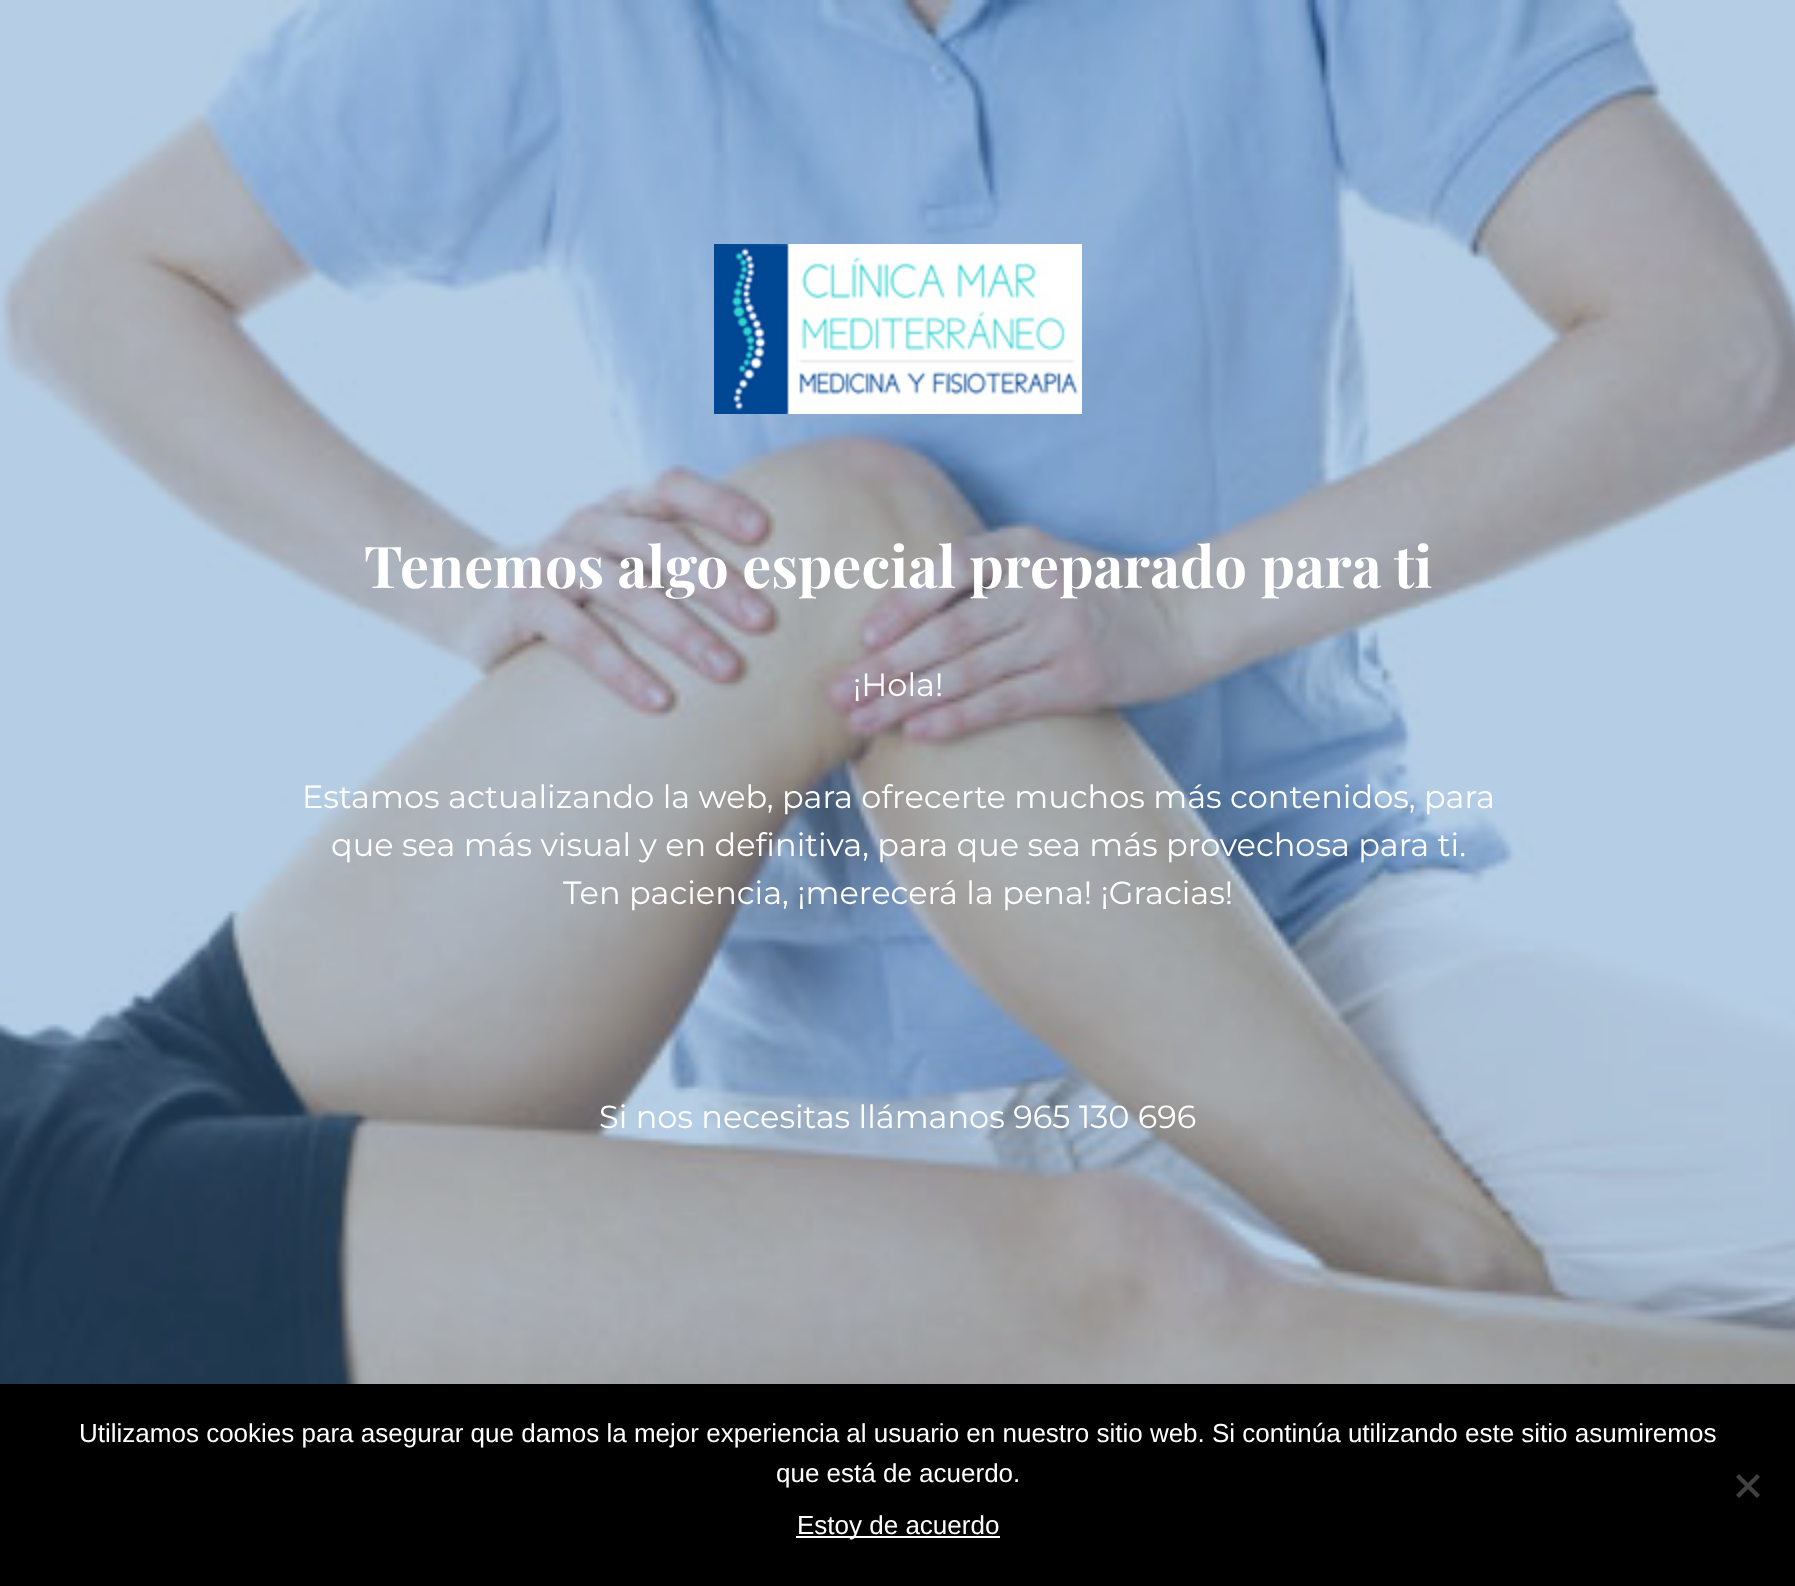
(async () => {
  const canvas = document.querySelector("canvas");
  canvas.width = 1795;
  canvas.height = 1586;
  const ctx = canvas.getContext("2d");
  ctx.miterLimit = 4;
  ctx.fontKerning = "normal";
  async function loadImage(src) {
    const img = new Image();
    img.src = src;
    await img.decode();
    return img;
  }
  let path;

  ctx.fillStyle = "#ffffff";
  ctx.fillRect(0, 0, 1795, 1586);
  ctx.drawImage(await loadImage("img/1.png"), 0, 0, 1795, 1384);
  ctx.drawImage(await loadImage("img/2.png"), 714, 244, 368, 170);
  ctx.fillStyle = "#000000";
  ctx.fillRect(0, 1384, 1795, 202);
  ctx.fillStyle = "#404040";
  path = new Path2D("M1757 1474L1760 1477L1739 1498L1736 1495Z");
  ctx.fill(path);
  path = new Path2D("M1736 1477L1739 1474L1760 1495L1757 1498Z");
  ctx.fill(path);
  ctx.fillStyle = "#ffffff";
  ctx.fillRect(796, 1536, 204, 2);
  ctx.font = "bold 57.6px Playfair Display";
  ctx.fillText("Tenemos algo especial preparado para ti", 364, 588);
  ctx.font = "32px Montserrat";
  for (const [text, x, y] of [
    ["¡Hola!", 853, 696],
    ["Estamos actualizando la web, para ofrecerte muchos más contenidos, para", 302, 808],
    ["que sea más visual y en definitiva, para que sea más provechosa para ti.", 331, 856],
    ["Ten paciencia, ¡merecerá la pena! ¡Gracias!", 563, 904],
    ["Si nos necesitas llámanos 965 130 696", 599, 1128],
  ]) {
    ctx.fillText(text, x, y);
  }
  ctx.font = "26px Liberation Sans";
  for (const [text, x, y] of [
    ["Utilizamos cookies para asegurar que damos la mejor experiencia al usuario en nuestro sitio web. Si continúa utilizando este sitio asumiremos", 79, 1442],
    ["que está de acuerdo.", 776, 1482],
    ["Estoy de acuerdo", 797, 1534],
  ]) {
    ctx.fillText(text, x, y);
  }
})();
